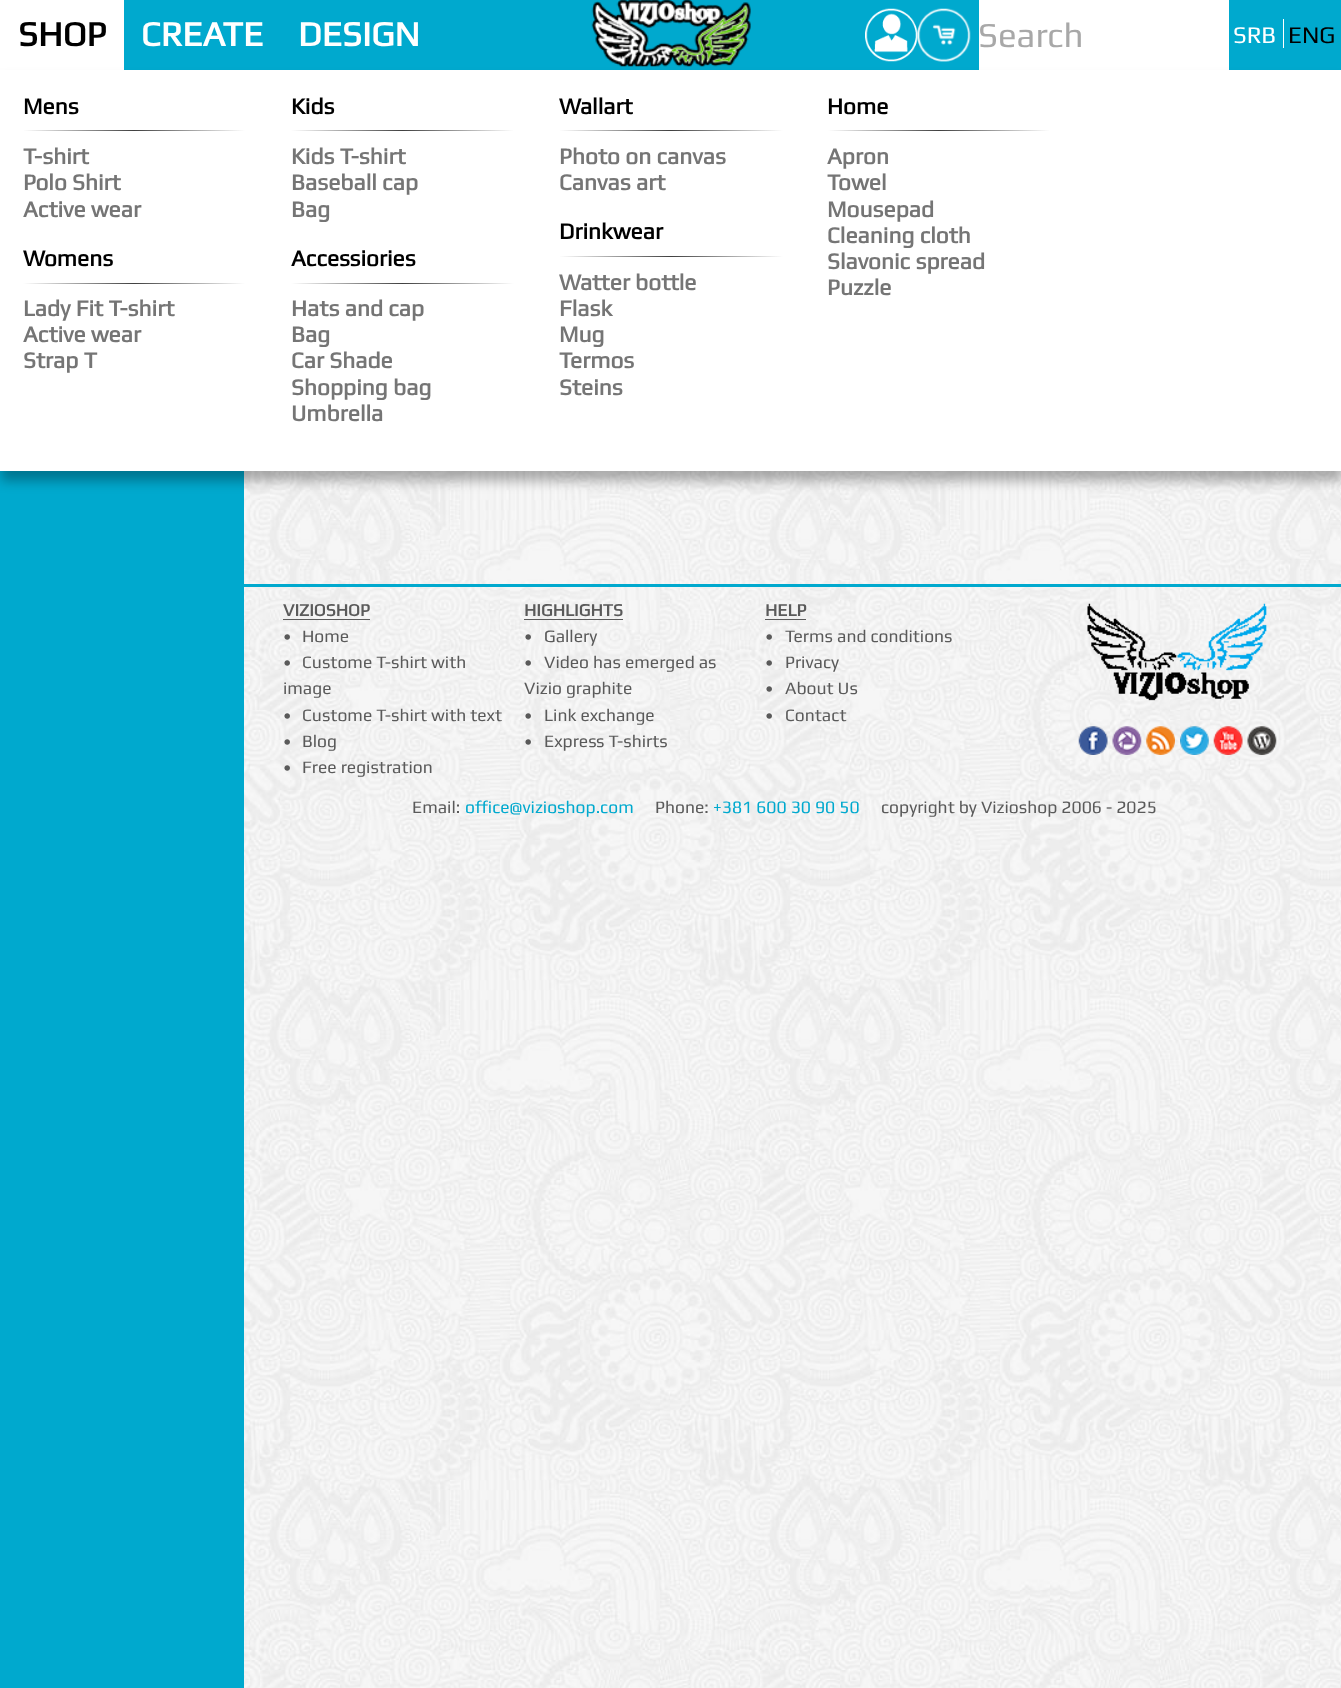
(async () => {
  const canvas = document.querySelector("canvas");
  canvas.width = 1341;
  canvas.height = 1688;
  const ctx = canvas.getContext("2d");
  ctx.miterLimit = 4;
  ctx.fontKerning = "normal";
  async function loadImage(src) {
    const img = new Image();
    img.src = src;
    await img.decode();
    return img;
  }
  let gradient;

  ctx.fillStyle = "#ffffff";
  ctx.fillRect(0, 0, 1341, 1688);
  ctx.drawImage(await loadImage("img/1.png"), 244, 471, 1097, 1217);
  ctx.fillStyle = "#00a9ce";
  ctx.fillRect(124, 0, 1217, 70);
  ctx.drawImage(await loadImage("img/3.png"), 865, 8, 53, 54);
  ctx.drawImage(await loadImage("img/4.png"), 917, 8, 54, 54);
  ctx.fillStyle = "#ffffff";
  ctx.fillRect(979, 0, 250, 70);
  ctx.fillStyle = "#00a9ce";
  ctx.fillRect(0, 471, 244, 1217);
  ctx.fillStyle = "rgba(0, 0, 0, 0.3)";
  ctx.filter = "blur(6px)";
  ctx.beginPath();
  ctx.rect(1, 80, 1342, 401);
  ctx.fill();
  ctx.filter = "none";
  ctx.drawImage(await loadImage("img/2.png"), 591, 0, 160, 67);
  ctx.fillStyle = "#ffffff";
  ctx.fillRect(0, 70, 1341, 401);
  gradient = ctx.createLinearGradient(23, 131, 245, 131);
  gradient.addColorStop(0, "#ffffff");
  gradient.addColorStop(0.5, "#404040");
  gradient.addColorStop(1, "#ffffff");
  ctx.fillStyle = gradient;
  ctx.fillRect(23, 130, 222, 1);
  gradient = ctx.createLinearGradient(23, 283, 245, 283);
  gradient.addColorStop(0, "#ffffff");
  gradient.addColorStop(0.5, "#404040");
  gradient.addColorStop(1, "#ffffff");
  ctx.fillStyle = gradient;
  ctx.fillRect(23, 283, 222, 1);
  gradient = ctx.createLinearGradient(291, 131, 514, 131);
  gradient.addColorStop(0, "#ffffff");
  gradient.addColorStop(0.5, "#404040");
  gradient.addColorStop(1, "#ffffff");
  ctx.fillStyle = gradient;
  ctx.fillRect(291, 130, 223, 1);
  gradient = ctx.createLinearGradient(291, 283, 514, 283);
  gradient.addColorStop(0, "#ffffff");
  gradient.addColorStop(0.5, "#404040");
  gradient.addColorStop(1, "#ffffff");
  ctx.fillStyle = gradient;
  ctx.fillRect(291, 283, 223, 1);
  gradient = ctx.createLinearGradient(559, 131, 783, 131);
  gradient.addColorStop(0, "#ffffff");
  gradient.addColorStop(0.5, "#404040");
  gradient.addColorStop(1, "#ffffff");
  ctx.fillStyle = gradient;
  ctx.fillRect(559, 130, 224, 1);
  gradient = ctx.createLinearGradient(559, 257, 783, 257);
  gradient.addColorStop(0, "#ffffff");
  gradient.addColorStop(0.5, "#404040");
  gradient.addColorStop(1, "#ffffff");
  ctx.fillStyle = gradient;
  ctx.fillRect(559, 256, 224, 1);
  gradient = ctx.createLinearGradient(828, 131, 1050, 131);
  gradient.addColorStop(0, "#ffffff");
  gradient.addColorStop(0.5, "#404040");
  gradient.addColorStop(1, "#ffffff");
  ctx.fillStyle = gradient;
  ctx.fillRect(828, 130, 222, 1);
  for (const [x, y, w, h, color] of [
    [1283, 19, 1, 29, "#ffffff"],
    [244, 584, 1097, 3, "#00a9ce"],
    [283, 619, 87, 1, "#5a5a5a"],
    [524, 619, 99, 1, "#5a5a5a"],
    [765, 619, 41, 1, "#5a5a5a"],
  ]) {
    ctx.fillStyle = color;
    ctx.fillRect(x, y, w, h);
  }
  ctx.drawImage(await loadImage("img/5.png"), 1087, 603, 180, 98);
  ctx.drawImage(await loadImage("img/6.png"), 1078, 726, 30, 29);
  ctx.drawImage(await loadImage("img/7.png"), 1112, 726, 30, 29);
  ctx.drawImage(await loadImage("img/8.png"), 1146, 726, 29, 29);
  ctx.drawImage(await loadImage("img/9.png"), 1180, 726, 29, 29);
  ctx.drawImage(await loadImage("img/10.png"), 1213, 726, 30, 29);
  ctx.drawImage(await loadImage("img/11.png"), 1247, 726, 30, 29);
  ctx.font = "bold 35px Play";
  ctx.fillStyle = "#000000";
  ctx.fillText("SHOP", 18, 46);
  ctx.font = "bold 22.75px Play";
  ctx.fillText("Mens", 23, 114);
  ctx.fillStyle = "#757575";
  for (const [text, x, y] of [
    ["T-shirt", 23, 164],
    ["Polo Shirt", 23, 190],
    ["Active wear", 23, 217],
  ]) {
    ctx.fillText(text, x, y);
  }
  ctx.fillStyle = "#000000";
  ctx.fillText("Womens", 23, 266);
  ctx.fillStyle = "#757575";
  for (const [text, x, y] of [
    ["Lady Fit T-shirt", 23, 316],
    ["Active wear", 23, 342],
    ["Strap T", 23, 368],
  ]) {
    ctx.fillText(text, x, y);
  }
  ctx.fillStyle = "#000000";
  ctx.fillText("Kids", 291, 114);
  ctx.fillStyle = "#757575";
  for (const [text, x, y] of [
    ["Kids T-shirt", 291, 164],
    ["Baseball cap", 291, 190],
    ["Bag", 291, 217],
  ]) {
    ctx.fillText(text, x, y);
  }
  ctx.fillStyle = "#000000";
  ctx.fillText("Accessiories", 291, 266);
  ctx.fillStyle = "#757575";
  for (const [text, x, y] of [
    ["Hats and cap", 291, 316],
    ["Bag", 291, 342],
    ["Car Shade", 291, 368],
    ["Shopping bag", 291, 395],
    ["Umbrella", 291, 421],
  ]) {
    ctx.fillText(text, x, y);
  }
  ctx.fillStyle = "#000000";
  ctx.fillText("Wallart", 559, 114);
  ctx.fillStyle = "#757575";
  ctx.fillText("Photo on canvas", 559, 164);
  ctx.fillText("Canvas art", 559, 190);
  ctx.fillStyle = "#000000";
  ctx.fillText("Drinkwear", 559, 239);
  ctx.fillStyle = "#757575";
  for (const [text, x, y] of [
    ["Watter bottle", 559, 290],
    ["Flask", 559, 316],
    ["Mug", 559, 342],
    ["Termos", 559, 368],
    ["Steins", 559, 395],
  ]) {
    ctx.fillText(text, x, y);
  }
  ctx.fillStyle = "#000000";
  ctx.fillText("Home", 827, 114);
  ctx.fillStyle = "#757575";
  for (const [text, x, y] of [
    ["Apron", 827, 164],
    ["Towel", 827, 190],
    ["Mousepad", 827, 217],
    ["Cleaning cloth", 827, 243],
    ["Slavonic spread", 827, 269],
    ["Puzzle", 827, 295],
  ]) {
    ctx.fillText(text, x, y);
  }
  ctx.font = "bold 35px Play";
  ctx.fillStyle = "#ffffff";
  ctx.fillText("CREATE", 141, 46);
  ctx.fillText("DESIGN", 298, 46);
  ctx.font = "35px Play";
  ctx.fillStyle = "#a8a8a8";
  ctx.fillText("Search", 978, 47);
  ctx.font = "24px Play";
  ctx.fillStyle = "#ffffff";
  ctx.fillText("SRB", 1233, 43);
  ctx.fillStyle = "#000000";
  ctx.fillText("ENG", 1288, 43);
  ctx.font = "bold 17.5px Play";
  ctx.fillStyle = "#5a5a5a";
  ctx.fillText("VIZIOSHOP", 283, 616);
  ctx.font = "17.5px Play";
  for (const [text, x, y] of [
    ["•", 283, 642],
    ["Home", 302, 642],
    ["•", 283, 668],
    ["Custome T-shirt with", 302, 668],
    ["image", 283, 694],
    ["•", 283, 721],
    ["Custome T-shirt with text", 302, 721],
    ["•", 283, 747],
    ["Blog", 302, 747],
    ["•", 283, 773],
    ["Free registration", 302, 773],
  ]) {
    ctx.fillText(text, x, y);
  }
  ctx.font = "bold 17.5px Play";
  ctx.fillText("HIGHLIGHTS", 524, 616);
  ctx.font = "17.5px Play";
  for (const [text, x, y] of [
    ["•", 524, 642],
    ["Gallery", 544, 642],
    ["•", 524, 668],
    ["Video has emerged as", 544, 668],
    ["Vizio graphite", 524, 694],
    ["•", 524, 721],
    ["Link exchange", 544, 721],
    ["•", 524, 747],
    ["Express T-shirts", 544, 747],
  ]) {
    ctx.fillText(text, x, y);
  }
  ctx.font = "bold 17.5px Play";
  ctx.fillText("HELP", 765, 616);
  ctx.font = "17.5px Play";
  for (const [text, x, y] of [
    ["•", 765, 642],
    ["Terms and conditions", 785, 642],
    ["•", 765, 668],
    ["Privacy", 785, 668],
    ["•", 765, 694],
    ["About Us", 785, 694],
    ["•", 765, 721],
    ["Contact", 785, 721],
    ["Email:", 412, 813],
  ]) {
    ctx.fillText(text, x, y);
  }
  ctx.fillStyle = "#00a9ce";
  ctx.fillText("office@vizioshop.com", 465, 813);
  ctx.fillStyle = "#5a5a5a";
  ctx.fillText("Phone:", 655, 813);
  ctx.fillStyle = "#00a9ce";
  ctx.fillText("+381 600 30 90 50", 713, 813);
  ctx.fillStyle = "#5a5a5a";
  ctx.fillText("copyright by Vizioshop 2006 - 2025", 881, 813);
})();
